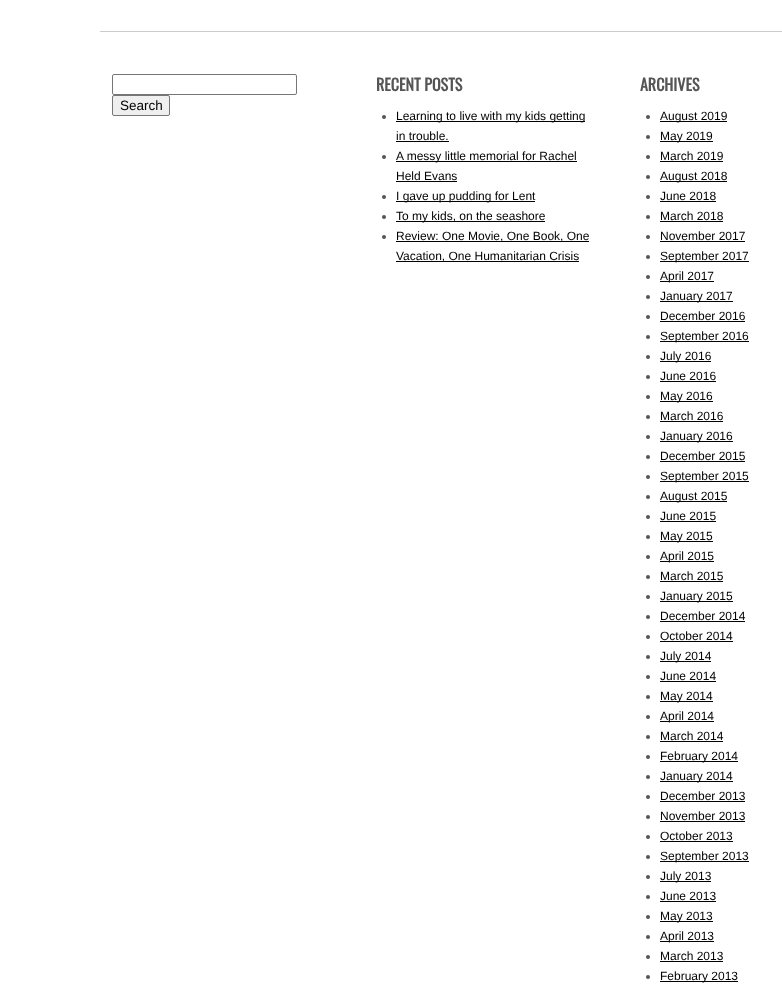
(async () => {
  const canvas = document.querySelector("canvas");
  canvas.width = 782;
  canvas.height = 990;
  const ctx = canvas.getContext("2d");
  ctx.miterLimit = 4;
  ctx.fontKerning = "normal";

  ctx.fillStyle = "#ffffff";
  ctx.fillRect(0, 0, 782, 990);
  ctx.fillStyle = "#cccccc";
  ctx.fillRect(100, 31, 682, 1);
  ctx.beginPath();
  ctx.roundRect(112.5, 74.5, 184, 20, 1.5);
  ctx.strokeStyle = "#767676";
  ctx.stroke();
  ctx.fillStyle = "#efefef";
  ctx.beginPath();
  ctx.roundRect(112.5, 95.5, 57, 20, 1.5);
  ctx.fill();
  ctx.stroke();
  ctx.fillStyle = "#555555";
  ctx.beginPath();
  ctx.arc(384, 117, 2, 0, Math.PI * 2);
  ctx.fill();
  ctx.fillStyle = "#000000";
  ctx.fillRect(396, 121, 189, 1);
  ctx.fillRect(396, 141, 53, 1);
  ctx.fillStyle = "#555555";
  ctx.beginPath();
  ctx.arc(384, 157, 2, 0, Math.PI * 2);
  ctx.fill();
  ctx.fillStyle = "#000000";
  ctx.fillRect(396, 161, 181, 1);
  ctx.fillRect(396, 181, 61, 1);
  ctx.fillStyle = "#555555";
  ctx.beginPath();
  ctx.arc(384, 197, 2, 0, Math.PI * 2);
  ctx.fill();
  ctx.fillStyle = "#000000";
  ctx.fillRect(396, 201, 139, 1);
  ctx.fillStyle = "#555555";
  ctx.beginPath();
  ctx.arc(384, 217, 2, 0, Math.PI * 2);
  ctx.fill();
  ctx.fillStyle = "#000000";
  ctx.fillRect(396, 221, 149, 1);
  ctx.fillStyle = "#555555";
  ctx.beginPath();
  ctx.arc(384, 237, 2, 0, Math.PI * 2);
  ctx.fill();
  ctx.fillStyle = "#000000";
  ctx.fillRect(396, 241, 193, 1);
  ctx.fillRect(396, 261, 183, 1);
  ctx.fillStyle = "#555555";
  ctx.beginPath();
  ctx.arc(648, 117, 2, 0, Math.PI * 2);
  ctx.fill();
  ctx.fillStyle = "#000000";
  ctx.fillRect(660, 121, 67, 1);
  ctx.fillStyle = "#555555";
  ctx.beginPath();
  ctx.arc(648, 137, 2, 0, Math.PI * 2);
  ctx.fill();
  ctx.fillStyle = "#000000";
  ctx.fillRect(660, 141, 53, 1);
  ctx.fillStyle = "#555555";
  ctx.beginPath();
  ctx.arc(648, 157, 2, 0, Math.PI * 2);
  ctx.fill();
  ctx.fillStyle = "#000000";
  ctx.fillRect(660, 161, 63, 1);
  ctx.fillStyle = "#555555";
  ctx.beginPath();
  ctx.arc(648, 177, 2, 0, Math.PI * 2);
  ctx.fill();
  ctx.fillStyle = "#000000";
  ctx.fillRect(660, 181, 67, 1);
  ctx.fillStyle = "#555555";
  ctx.beginPath();
  ctx.arc(648, 197, 2, 0, Math.PI * 2);
  ctx.fill();
  ctx.fillStyle = "#000000";
  ctx.fillRect(660, 201, 56, 1);
  ctx.fillStyle = "#555555";
  ctx.beginPath();
  ctx.arc(648, 217, 2, 0, Math.PI * 2);
  ctx.fill();
  ctx.fillStyle = "#000000";
  ctx.fillRect(660, 221, 63, 1);
  ctx.fillStyle = "#555555";
  ctx.beginPath();
  ctx.arc(648, 237, 2, 0, Math.PI * 2);
  ctx.fill();
  ctx.fillStyle = "#000000";
  ctx.fillRect(660, 241, 85, 1);
  ctx.fillStyle = "#555555";
  ctx.beginPath();
  ctx.arc(648, 257, 2, 0, Math.PI * 2);
  ctx.fill();
  ctx.fillStyle = "#000000";
  ctx.fillRect(660, 261, 89, 1);
  ctx.fillStyle = "#555555";
  ctx.beginPath();
  ctx.arc(648, 277, 2, 0, Math.PI * 2);
  ctx.fill();
  ctx.fillStyle = "#000000";
  ctx.fillRect(660, 281, 54, 1);
  ctx.fillStyle = "#555555";
  ctx.beginPath();
  ctx.arc(648, 297, 2, 0, Math.PI * 2);
  ctx.fill();
  ctx.fillStyle = "#000000";
  ctx.fillRect(660, 301, 73, 1);
  ctx.fillStyle = "#555555";
  ctx.beginPath();
  ctx.arc(648, 317, 2, 0, Math.PI * 2);
  ctx.fill();
  ctx.fillStyle = "#000000";
  ctx.fillRect(660, 321, 85, 1);
  ctx.fillStyle = "#555555";
  ctx.beginPath();
  ctx.arc(648, 337, 2, 0, Math.PI * 2);
  ctx.fill();
  ctx.fillStyle = "#000000";
  ctx.fillRect(660, 341, 89, 1);
  ctx.fillStyle = "#555555";
  ctx.beginPath();
  ctx.arc(648, 357, 2, 0, Math.PI * 2);
  ctx.fill();
  ctx.fillStyle = "#000000";
  ctx.fillRect(660, 361, 51, 1);
  ctx.fillStyle = "#555555";
  ctx.beginPath();
  ctx.arc(648, 377, 2, 0, Math.PI * 2);
  ctx.fill();
  ctx.fillStyle = "#000000";
  ctx.fillRect(660, 381, 56, 1);
  ctx.fillStyle = "#555555";
  ctx.beginPath();
  ctx.arc(648, 397, 2, 0, Math.PI * 2);
  ctx.fill();
  ctx.fillStyle = "#000000";
  ctx.fillRect(660, 401, 53, 1);
  ctx.fillStyle = "#555555";
  ctx.beginPath();
  ctx.arc(648, 417, 2, 0, Math.PI * 2);
  ctx.fill();
  ctx.fillStyle = "#000000";
  ctx.fillRect(660, 421, 63, 1);
  ctx.fillStyle = "#555555";
  ctx.beginPath();
  ctx.arc(648, 437, 2, 0, Math.PI * 2);
  ctx.fill();
  ctx.fillStyle = "#000000";
  ctx.fillRect(660, 441, 73, 1);
  ctx.fillStyle = "#555555";
  ctx.beginPath();
  ctx.arc(648, 457, 2, 0, Math.PI * 2);
  ctx.fill();
  ctx.fillStyle = "#000000";
  ctx.fillRect(660, 461, 85, 1);
  ctx.fillStyle = "#555555";
  ctx.beginPath();
  ctx.arc(648, 477, 2, 0, Math.PI * 2);
  ctx.fill();
  ctx.fillStyle = "#000000";
  ctx.fillRect(660, 481, 89, 1);
  ctx.fillStyle = "#555555";
  ctx.beginPath();
  ctx.arc(648, 497, 2, 0, Math.PI * 2);
  ctx.fill();
  ctx.fillStyle = "#000000";
  ctx.fillRect(660, 501, 67, 1);
  ctx.fillStyle = "#555555";
  ctx.beginPath();
  ctx.arc(648, 517, 2, 0, Math.PI * 2);
  ctx.fill();
  ctx.fillStyle = "#000000";
  ctx.fillRect(660, 521, 56, 1);
  ctx.fillStyle = "#555555";
  ctx.beginPath();
  ctx.arc(648, 537, 2, 0, Math.PI * 2);
  ctx.fill();
  ctx.fillStyle = "#000000";
  ctx.fillRect(660, 541, 53, 1);
  ctx.fillStyle = "#555555";
  ctx.beginPath();
  ctx.arc(648, 557, 2, 0, Math.PI * 2);
  ctx.fill();
  ctx.fillStyle = "#000000";
  ctx.fillRect(660, 561, 54, 1);
  ctx.fillStyle = "#555555";
  ctx.beginPath();
  ctx.arc(648, 577, 2, 0, Math.PI * 2);
  ctx.fill();
  ctx.fillStyle = "#000000";
  ctx.fillRect(660, 581, 63, 1);
  ctx.fillStyle = "#555555";
  ctx.beginPath();
  ctx.arc(648, 597, 2, 0, Math.PI * 2);
  ctx.fill();
  ctx.fillStyle = "#000000";
  ctx.fillRect(660, 601, 73, 1);
  ctx.fillStyle = "#555555";
  ctx.beginPath();
  ctx.arc(648, 617, 2, 0, Math.PI * 2);
  ctx.fill();
  ctx.fillStyle = "#000000";
  ctx.fillRect(660, 621, 85, 1);
  ctx.fillStyle = "#555555";
  ctx.beginPath();
  ctx.arc(648, 637, 2, 0, Math.PI * 2);
  ctx.fill();
  ctx.fillStyle = "#000000";
  ctx.fillRect(660, 641, 73, 1);
  ctx.fillStyle = "#555555";
  ctx.beginPath();
  ctx.arc(648, 657, 2, 0, Math.PI * 2);
  ctx.fill();
  ctx.fillStyle = "#000000";
  ctx.fillRect(660, 661, 51, 1);
  ctx.fillStyle = "#555555";
  ctx.beginPath();
  ctx.arc(648, 677, 2, 0, Math.PI * 2);
  ctx.fill();
  ctx.fillStyle = "#000000";
  ctx.fillRect(660, 681, 56, 1);
  ctx.fillStyle = "#555555";
  ctx.beginPath();
  ctx.arc(648, 697, 2, 0, Math.PI * 2);
  ctx.fill();
  ctx.fillStyle = "#000000";
  ctx.fillRect(660, 701, 53, 1);
  ctx.fillStyle = "#555555";
  ctx.beginPath();
  ctx.arc(648, 717, 2, 0, Math.PI * 2);
  ctx.fill();
  ctx.fillStyle = "#000000";
  ctx.fillRect(660, 721, 54, 1);
  ctx.fillStyle = "#555555";
  ctx.beginPath();
  ctx.arc(648, 737, 2, 0, Math.PI * 2);
  ctx.fill();
  ctx.fillStyle = "#000000";
  ctx.fillRect(660, 741, 63, 1);
  ctx.fillStyle = "#555555";
  ctx.beginPath();
  ctx.arc(648, 757, 2, 0, Math.PI * 2);
  ctx.fill();
  ctx.fillStyle = "#000000";
  ctx.fillRect(660, 761, 78, 1);
  ctx.fillStyle = "#555555";
  ctx.beginPath();
  ctx.arc(648, 777, 2, 0, Math.PI * 2);
  ctx.fill();
  ctx.fillStyle = "#000000";
  ctx.fillRect(660, 781, 73, 1);
  ctx.fillStyle = "#555555";
  ctx.beginPath();
  ctx.arc(648, 797, 2, 0, Math.PI * 2);
  ctx.fill();
  ctx.fillStyle = "#000000";
  ctx.fillRect(660, 801, 85, 1);
  ctx.fillStyle = "#555555";
  ctx.beginPath();
  ctx.arc(648, 817, 2, 0, Math.PI * 2);
  ctx.fill();
  ctx.fillStyle = "#000000";
  ctx.fillRect(660, 821, 85, 1);
  ctx.fillStyle = "#555555";
  ctx.beginPath();
  ctx.arc(648, 837, 2, 0, Math.PI * 2);
  ctx.fill();
  ctx.fillStyle = "#000000";
  ctx.fillRect(660, 841, 73, 1);
  ctx.fillStyle = "#555555";
  ctx.beginPath();
  ctx.arc(648, 857, 2, 0, Math.PI * 2);
  ctx.fill();
  ctx.fillStyle = "#000000";
  ctx.fillRect(660, 861, 89, 1);
  ctx.fillStyle = "#555555";
  ctx.beginPath();
  ctx.arc(648, 877, 2, 0, Math.PI * 2);
  ctx.fill();
  ctx.fillStyle = "#000000";
  ctx.fillRect(660, 881, 51, 1);
  ctx.fillStyle = "#555555";
  ctx.beginPath();
  ctx.arc(648, 897, 2, 0, Math.PI * 2);
  ctx.fill();
  ctx.fillStyle = "#000000";
  ctx.fillRect(660, 901, 56, 1);
  ctx.fillStyle = "#555555";
  ctx.beginPath();
  ctx.arc(648, 917, 2, 0, Math.PI * 2);
  ctx.fill();
  ctx.fillStyle = "#000000";
  ctx.fillRect(660, 921, 53, 1);
  ctx.fillStyle = "#555555";
  ctx.beginPath();
  ctx.arc(648, 937, 2, 0, Math.PI * 2);
  ctx.fill();
  ctx.fillStyle = "#000000";
  ctx.fillRect(660, 941, 54, 1);
  ctx.fillStyle = "#555555";
  ctx.beginPath();
  ctx.arc(648, 957, 2, 0, Math.PI * 2);
  ctx.fill();
  ctx.fillStyle = "#000000";
  ctx.fillRect(660, 961, 63, 1);
  ctx.fillStyle = "#555555";
  ctx.beginPath();
  ctx.arc(648, 977, 2, 0, Math.PI * 2);
  ctx.fill();
  ctx.fillStyle = "#000000";
  ctx.fillRect(660, 981, 78, 1);
  ctx.font = "13.5px Liberation Sans";
  ctx.fillText("Search", 120, 110);
  ctx.font = "bold 16px Oswald";
  ctx.fillStyle = "#555555";
  ctx.fillText("RECENT POSTS", 376, 91);
  ctx.font = "12px Liberation Sans";
  ctx.fillStyle = "#000000";
  for (const [text, x, y] of [
    ["Learning to live with my kids getting", 396, 120],
    ["in trouble.", 396, 140],
    ["A messy little memorial for Rachel", 396, 160],
    ["Held Evans", 396, 180],
    ["I gave up pudding for Lent", 396, 200],
    ["To my kids, on the seashore", 396, 220],
    ["Review: One Movie, One Book, One", 396, 240],
    ["Vacation, One Humanitarian Crisis", 396, 260],
  ]) {
    ctx.fillText(text, x, y);
  }
  ctx.font = "bold 16px Oswald";
  ctx.fillStyle = "#555555";
  ctx.fillText("ARCHIVES", 640, 91);
  ctx.font = "12px Liberation Sans";
  ctx.fillStyle = "#000000";
  for (const [text, x, y] of [
    ["August 2019", 660, 120],
    ["May 2019", 660, 140],
    ["March 2019", 660, 160],
    ["August 2018", 660, 180],
    ["June 2018", 660, 200],
    ["March 2018", 660, 220],
    ["November 2017", 660, 240],
    ["September 2017", 660, 260],
    ["April 2017", 660, 280],
    ["January 2017", 660, 300],
    ["December 2016", 660, 320],
    ["September 2016", 660, 340],
    ["July 2016", 660, 360],
    ["June 2016", 660, 380],
    ["May 2016", 660, 400],
    ["March 2016", 660, 420],
    ["January 2016", 660, 440],
    ["December 2015", 660, 460],
    ["September 2015", 660, 480],
    ["August 2015", 660, 500],
    ["June 2015", 660, 520],
    ["May 2015", 660, 540],
    ["April 2015", 660, 560],
    ["March 2015", 660, 580],
    ["January 2015", 660, 600],
    ["December 2014", 660, 620],
    ["October 2014", 660, 640],
    ["July 2014", 660, 660],
    ["June 2014", 660, 680],
    ["May 2014", 660, 700],
    ["April 2014", 660, 720],
    ["March 2014", 660, 740],
    ["February 2014", 660, 760],
    ["January 2014", 660, 780],
    ["December 2013", 660, 800],
    ["November 2013", 660, 820],
    ["October 2013", 660, 840],
    ["September 2013", 660, 860],
    ["July 2013", 660, 880],
    ["June 2013", 660, 900],
    ["May 2013", 660, 920],
    ["April 2013", 660, 940],
    ["March 2013", 660, 960],
    ["February 2013", 660, 980],
  ]) {
    ctx.fillText(text, x, y);
  }
})();
